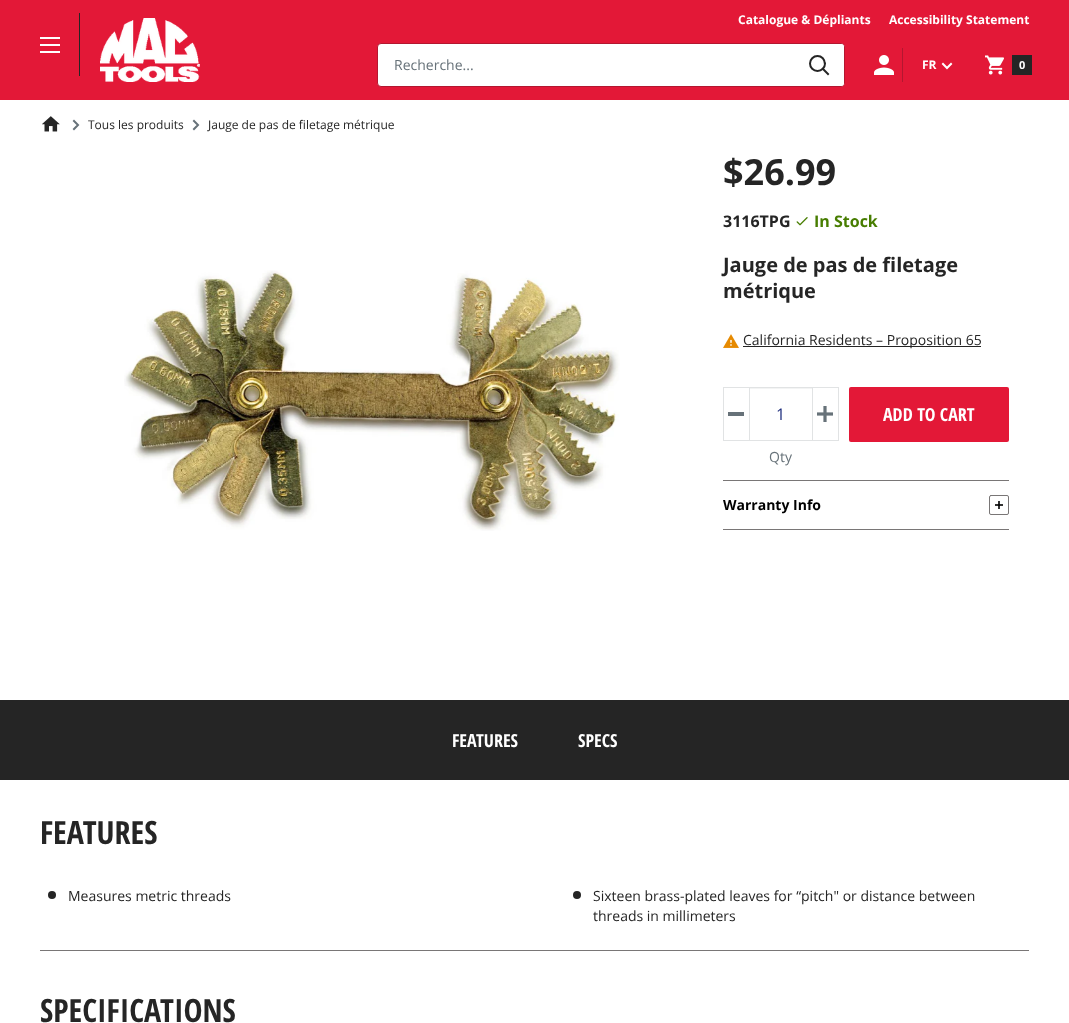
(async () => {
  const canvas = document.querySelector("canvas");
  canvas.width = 1069;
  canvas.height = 1023;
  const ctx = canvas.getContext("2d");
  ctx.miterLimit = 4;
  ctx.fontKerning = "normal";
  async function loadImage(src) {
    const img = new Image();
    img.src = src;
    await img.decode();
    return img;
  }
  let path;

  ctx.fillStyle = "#ffffff";
  ctx.fillRect(0, 0, 1069, 1023);
  ctx.fillStyle = "#e31837";
  ctx.fillRect(0, 0, 1069, 100);
  ctx.fillStyle = "#252525";
  ctx.fillRect(79, 13, 1, 63);
  ctx.drawImage(await loadImage("img/1.png"), 40, 37, 20, 16);
  ctx.drawImage(await loadImage("img/2.png"), 100, 18, 100, 64);
  ctx.fillStyle = "#ffffff";
  ctx.beginPath();
  ctx.roundRect(377.5, 43.5, 467, 43, 3.5);
  ctx.fill();
  ctx.strokeStyle = "#b31730";
  ctx.stroke();
  ctx.beginPath();
  ctx.roundRect(794, 44, 50, 42, [0, 3, 3, 0]);
  ctx.fill();
  path = new Path2D("M828 74L823 69");
  ctx.strokeStyle = "#252525";
  ctx.lineWidth = 2;
  ctx.lineCap = "square";
  ctx.stroke(path);
  ctx.beginPath();
  ctx.arc(817.5, 63.5, 7.5, 0, Math.PI * 2);
  ctx.stroke();
  ctx.drawImage(await loadImage("img/3.png"), 874, 55, 20, 20);
  ctx.fillStyle = "#b31730";
  ctx.fillRect(902, 48, 1, 34);
  path = new Path2D("M951 64L947 68L943 64");
  ctx.strokeStyle = "#ffffff";
  ctx.stroke(path);
  ctx.drawImage(await loadImage("img/4.png"), 985, 55, 19, 20);
  ctx.fillStyle = "#252525";
  ctx.fillRect(1012, 55, 20, 20);
  ctx.drawImage(await loadImage("img/5.png"), 42, 116, 18, 16);
  path = new Path2D("M74 121L78 125L74 129");
  ctx.strokeStyle = "#677279";
  ctx.stroke(path);
  path = new Path2D("M194 121L198 125L194 129");
  ctx.stroke(path);
  ctx.drawImage(await loadImage("img/6.png"), 124, 270, 496, 261);
  ctx.drawImage(await loadImage("img/7.png"), 796, 217, 12, 9);
  ctx.drawImage(await loadImage("img/8.png"), 723, 334, 16, 14);
  ctx.fillRect(743, 346, 238, 1);
  ctx.strokeStyle = "#e1e3e4";
  ctx.lineWidth = 1;
  ctx.strokeRect(723.5, 387.5, 115, 53);
  for (const [x, y, w, h, color] of [
    [728, 412, 16, 4, "#677279"],
    [750, 388, 62, 1, "#f3f4f4"],
    [812, 388, 1, 52, "#e1e3e4"],
    [749, 388, 1, 52, "#e1e3e4"],
  ]) {
    ctx.fillStyle = color;
    ctx.fillRect(x, y, w, h);
  }
  ctx.drawImage(await loadImage("img/9.png"), 817, 406, 16, 16);
  ctx.fillStyle = "#e31837";
  ctx.beginPath();
  ctx.roundRect(849, 387, 160, 55, 2);
  ctx.fill();
  ctx.fillStyle = "#797676";
  ctx.fillRect(723, 480, 286, 1);
  ctx.fillRect(723, 529, 286, 1);
  ctx.beginPath();
  ctx.roundRect(989.5, 495.5, 19, 19, 1.5);
  ctx.strokeStyle = "#797676";
  ctx.stroke();
  ctx.drawImage(await loadImage("img/10.png"), 995, 501, 8, 8);
  ctx.fillStyle = "#252525";
  ctx.fillRect(0, 700, 1069, 80);
  ctx.fillStyle = "#797676";
  ctx.fillRect(40, 950, 989, 1);
  ctx.fillStyle = "#252525";
  ctx.beginPath();
  ctx.arc(52, 895, 4, 0, Math.PI * 2);
  ctx.fill();
  ctx.beginPath();
  ctx.arc(577, 895, 4, 0, Math.PI * 2);
  ctx.fill();
  ctx.font = "bold 12px Open Sans";
  ctx.fillStyle = "#ffffff";
  ctx.fillText("Catalogue & Dépliants", 738, 24);
  ctx.fillText("Accessibility Statement", 889, 24);
  ctx.font = "14px Open Sans";
  ctx.fillStyle = "#677279";
  ctx.fillText("Recherche...", 394, 70);
  ctx.font = "bold 12px Open Sans";
  ctx.fillStyle = "#ffffff";
  ctx.fillText("FR", 922, 69);
  ctx.font = "bold 11px Open Sans";
  ctx.fillText("0", 1019, 69);
  ctx.font = "12px Open Sans";
  ctx.fillStyle = "#252525";
  ctx.fillText("Tous les produits", 88, 129);
  ctx.fillText("Jauge de pas de filetage métrique", 208, 129);
  ctx.font = "bold 36px Open Sans";
  ctx.fillText("$26.99", 723, 185);
  ctx.font = "bold 16px Open Sans";
  ctx.fillText("3116TPG", 723, 227);
  ctx.fillStyle = "#477d00";
  ctx.fillText("In Stock", 814, 227);
  ctx.font = "bold 20px Open Sans";
  ctx.fillStyle = "#252525";
  ctx.fillText("Jauge de pas de filetage", 723, 272);
  ctx.fillText("métrique", 723, 298);
  ctx.font = "14px Open Sans";
  ctx.fillText("California Residents – Proposition 65", 743, 345);
  ctx.font = "16px Open Sans";
  ctx.fillStyle = "#1e2d7d";
  ctx.fillText("1", 776, 420);
  ctx.font = "14px Open Sans";
  ctx.fillStyle = "#677279";
  ctx.fillText("Qty", 769, 462);
  ctx.font = "bold 18px Open Sans Condensed";
  ctx.fillStyle = "#ffffff";
  ctx.fillText("ADD TO CART", 883, 421);
  ctx.font = "bold 14px Open Sans";
  ctx.fillStyle = "#000000";
  ctx.fillText("Warranty Info", 723, 510);
  ctx.font = "bold 18px Open Sans Condensed";
  ctx.fillStyle = "#ffffff";
  ctx.fillText("FEATURES", 452, 747);
  ctx.fillText("SPECS", 578, 747);
  ctx.font = "bold 32px Open Sans Condensed";
  ctx.fillStyle = "#252525";
  ctx.fillText("FEATURES", 40, 844);
  ctx.font = "14px Open Sans";
  for (const [text, x, y] of [
    ["Measures metric threads", 68, 901],
    ["Sixteen brass-plated leaves for “pitch\" or distance between", 593, 901],
    ["threads in millimeters", 593, 921],
  ]) {
    ctx.fillText(text, x, y);
  }
  ctx.font = "bold 32px Open Sans Condensed";
  ctx.fillText("SPECIFICATIONS", 40, 1022);
})();
